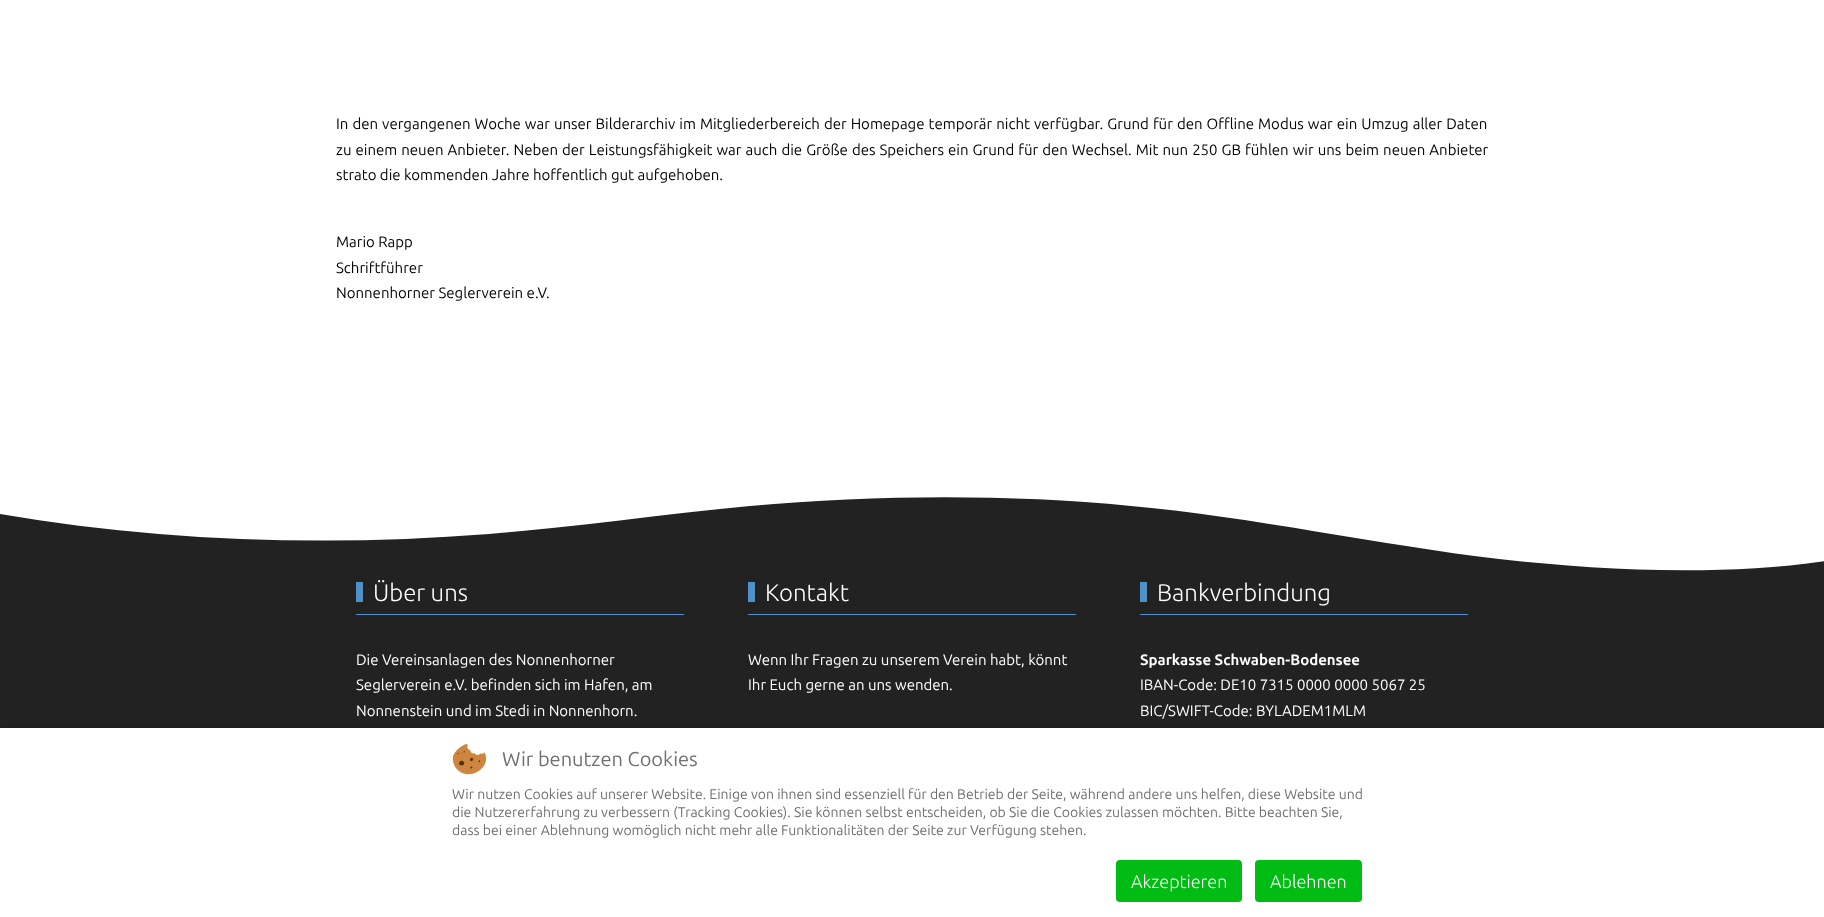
(async () => {
  const canvas = document.querySelector("canvas");
  canvas.width = 1824;
  canvas.height = 917;
  const ctx = canvas.getContext("2d");
  ctx.miterLimit = 4;
  ctx.fontKerning = "normal";
  async function loadImage(src) {
    const img = new Image();
    img.src = src;
    await img.decode();
    return img;
  }
  let path;

  ctx.fillStyle = "#ffffff";
  ctx.fillRect(0, 0, 1824, 917);
  ctx.fillStyle = "#222222";
  ctx.fillRect(0, 497, 1824, 231);
  ctx.fillStyle = "#ffffff";
  path = new Path2D("M489 534C577 527 663 514 750 506C876 495 1006 494 1131 506C1253 517 1379 545 1499 559C1606 571 1722 576 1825 561V496H0V514C156 541 325 547 489 534Z");
  ctx.fill(path);
  for (const [x, y, w, h, color] of [
    [356, 614, 328, 1, "#4f90c8"],
    [356, 582, 7, 20, "#4f90c8"],
    [748, 614, 328, 1, "#4f90c8"],
    [748, 582, 7, 20, "#4f90c8"],
    [1140, 614, 328, 1, "#4f90c8"],
    [1140, 582, 7, 20, "#4f90c8"],
  ]) {
    ctx.fillStyle = color;
    ctx.fillRect(x, y, w, h);
  }
  ctx.fillStyle = "rgba(0, 0, 0, 0.25)";
  ctx.filter = "blur(2.5px)";
  ctx.beginPath();
  ctx.rect(0, 728, 1824, 189);
  ctx.fill();
  ctx.filter = "none";
  ctx.fillStyle = "#ffffff";
  ctx.fillRect(0, 728, 1824, 189);
  ctx.drawImage(await loadImage("img/1.png"), 452, 743, 35, 32);
  ctx.fillStyle = "#00bc13";
  ctx.beginPath();
  ctx.roundRect(1116, 860, 126, 42, 4);
  ctx.fill();
  ctx.beginPath();
  ctx.roundRect(1255, 860, 107, 42, 4);
  ctx.fill();
  ctx.wordSpacing = "0.6px";
  ctx.font = "15px Ubuntu";
  ctx.fillStyle = "#000000";
  ctx.fillText("In den vergangenen Woche war unser Bilderarchiv im Mitgliederbereich der Homepage temporär nicht verfügbar. Grund für den Offline Modus war ein Umzug aller Daten", 336, 129);
  ctx.fillText("zu einem neuen Anbieter. Neben der Leistungsfähigkeit war auch die Größe des Speichers ein Grund für den Wechsel. Mit nun 250 GB fühlen wir uns beim neuen Anbieter", 336, 155);
  ctx.wordSpacing = "0px";
  for (const [text, x, y] of [
    ["strato die kommenden Jahre hoffentlich gut aufgehoben.", 336, 180],
    ["Mario Rapp", 336, 247],
    ["Schriftführer", 336, 273],
    ["Nonnenhorner Seglerverein e.V.", 336, 298],
  ]) {
    ctx.fillText(text, x, y);
  }
  ctx.font = "300 24px Ubuntu";
  ctx.fillStyle = "#ffffff";
  ctx.fillText("Über uns", 373, 601);
  ctx.font = "15px Ubuntu";
  for (const [text, x, y] of [
    ["Die Vereinsanlagen des Nonnenhorner", 356, 665],
    ["Seglerverein e.V. befinden sich im Hafen, am", 356, 690],
    ["Nonnenstein und im Stedi in Nonnenhorn.", 356, 716],
  ]) {
    ctx.fillText(text, x, y);
  }
  ctx.font = "300 24px Ubuntu";
  ctx.fillText("Kontakt", 765, 601);
  ctx.font = "15px Ubuntu";
  ctx.fillText("Wenn Ihr Fragen zu unserem Verein habt, könnt", 748, 665);
  ctx.fillText("Ihr Euch gerne an uns wenden.", 748, 690);
  ctx.font = "300 24px Ubuntu";
  ctx.fillText("Bankverbindung", 1157, 601);
  ctx.font = "bold 15px Ubuntu";
  ctx.fillText("Sparkasse Schwaben-Bodensee", 1140, 665);
  ctx.font = "15px Ubuntu";
  ctx.fillText("IBAN-Code: DE10 7315 0000 0000 5067 25", 1140, 690);
  ctx.fillText("BIC/SWIFT-Code: BYLADEM1MLM", 1140, 716);
  ctx.font = "20px Ubuntu";
  ctx.fillStyle = "#707070";
  ctx.fillText("Wir benutzen Cookies", 502, 766);
  ctx.font = "14px Ubuntu";
  for (const [text, x, y] of [
    ["Wir nutzen Cookies auf unserer Website. Einige von ihnen sind essenziell für den Betrieb der Seite, während andere uns helfen, diese Website und", 452, 799],
    ["die Nutzererfahrung zu verbessern (Tracking Cookies). Sie können selbst entscheiden, ob Sie die Cookies zulassen möchten. Bitte beachten Sie,", 452, 817],
    ["dass bei einer Ablehnung womöglich nicht mehr alle Funktionalitäten der Seite zur Verfügung stehen.", 452, 835],
  ]) {
    ctx.fillText(text, x, y);
  }
  ctx.font = "300 18px Ubuntu";
  ctx.fillStyle = "#ffffff";
  ctx.fillText("Akzeptieren", 1131, 888);
  ctx.fillText("Ablehnen", 1270, 888);
})();
